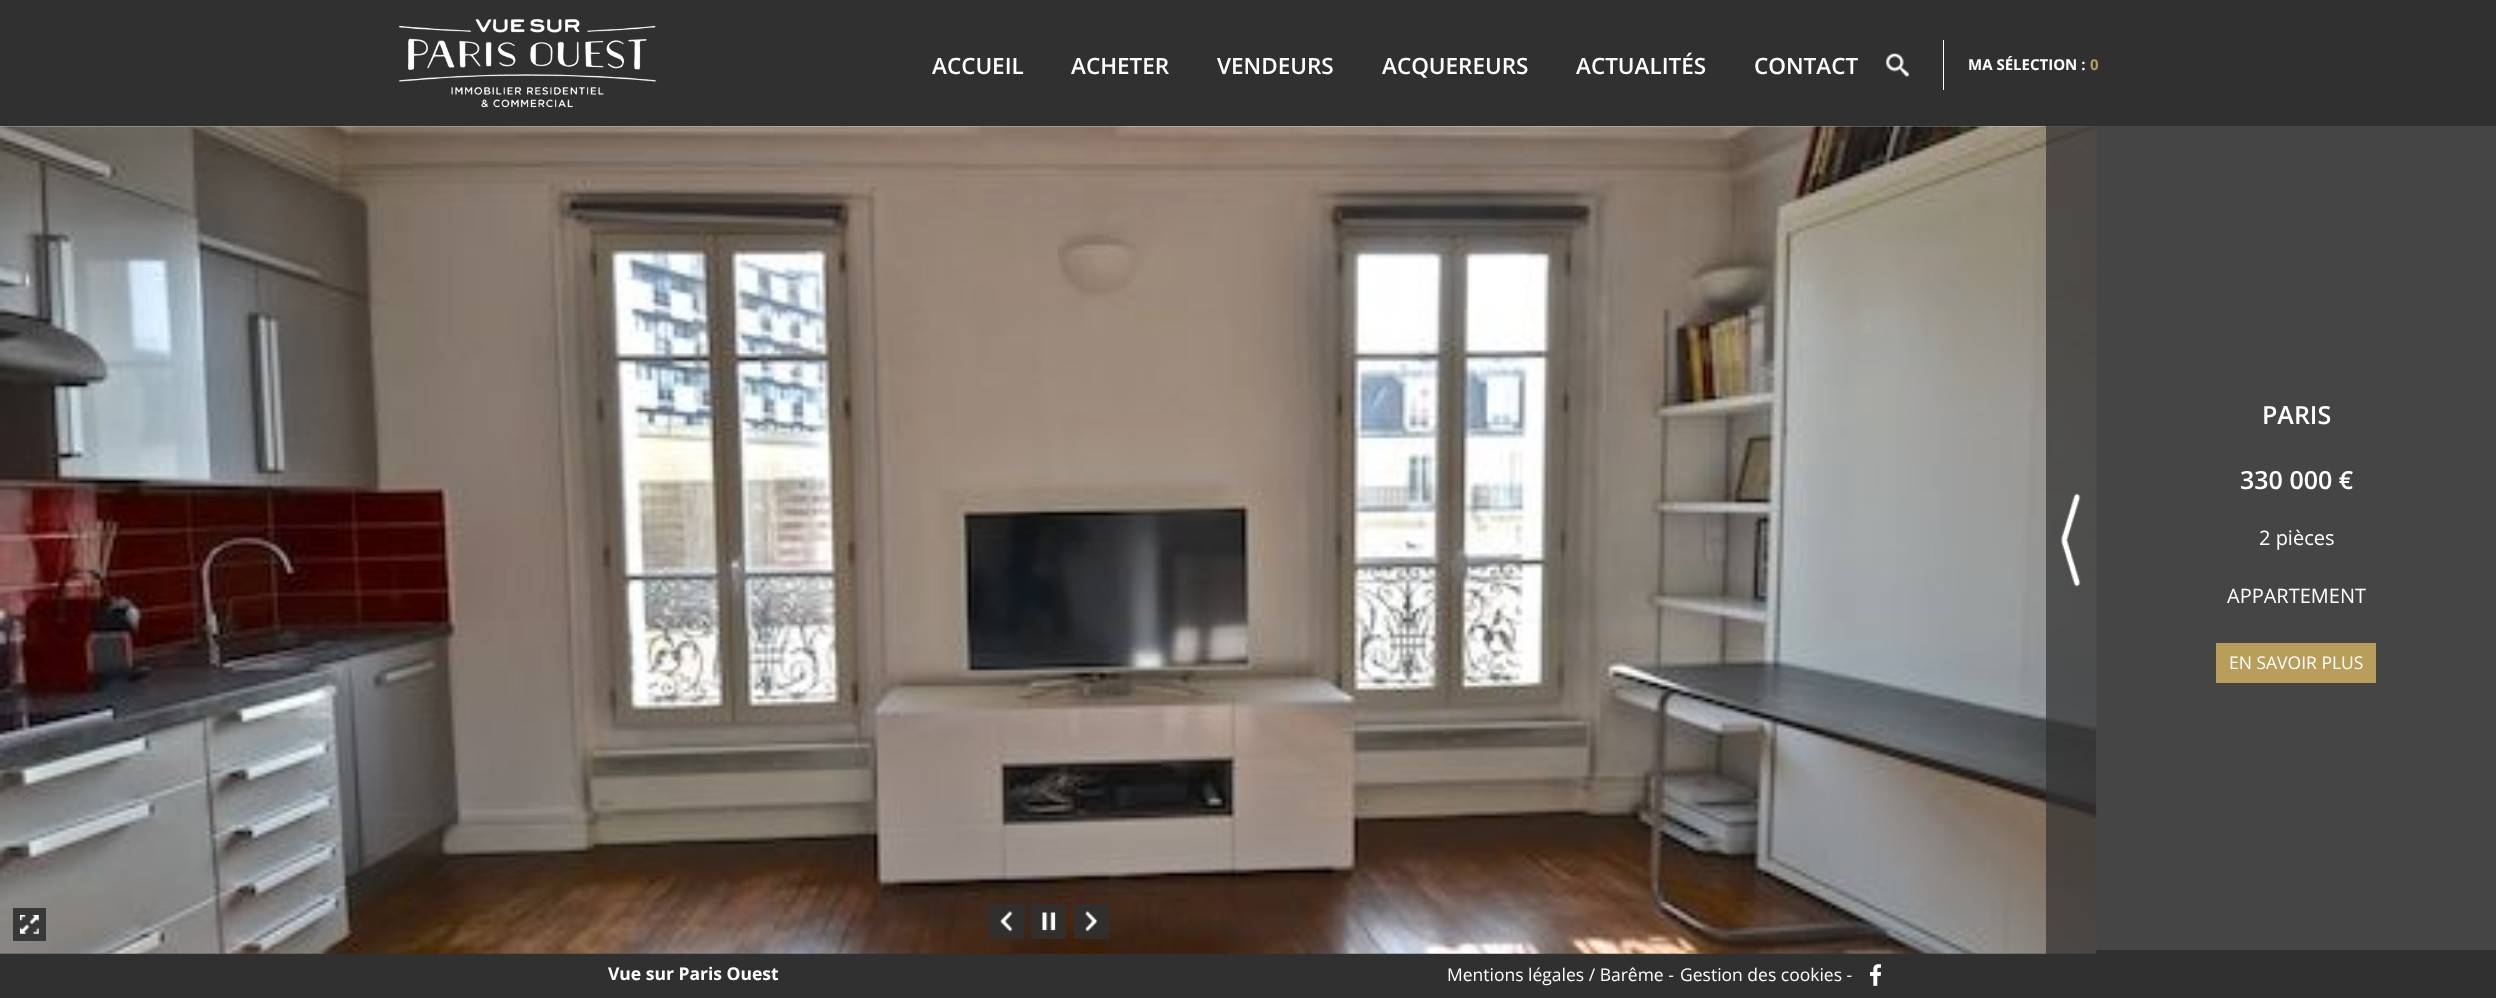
(async () => {
  const canvas = document.querySelector("canvas");
  canvas.width = 2496;
  canvas.height = 998;
  const ctx = canvas.getContext("2d");
  ctx.miterLimit = 4;
  ctx.fontKerning = "normal";
  async function loadImage(src) {
    const img = new Image();
    img.src = src;
    await img.decode();
    return img;
  }

  ctx.fillStyle = "#ffffff";
  ctx.fillRect(0, 0, 2496, 998);
  ctx.fillStyle = "#303030";
  ctx.fillRect(0, 0, 2496, 126);
  ctx.drawImage(await loadImage("img/1.png"), 398, 18, 259, 90);
  ctx.drawImage(await loadImage("img/2.png"), 1886, 53, 23, 24);
  for (const [x, y, w, h, color] of [
    [1943, 40, 1, 50, "#ffffff"],
    [2096, 126, 400, 824, "#454545"],
    [0, 950, 2496, 48, "#303030"],
  ]) {
    ctx.fillStyle = color;
    ctx.fillRect(x, y, w, h);
  }
  ctx.drawImage(await loadImage("img/3.png"), 0, 126, 2097, 828);
  ctx.fillStyle = "rgba(48, 48, 48, 0.9)";
  ctx.fillRect(13, 908, 33, 33);
  ctx.drawImage(await loadImage("img/4.png"), 20, 915, 19, 19);
  ctx.fillRect(989, 904, 35, 35);
  ctx.drawImage(await loadImage("img/5.png"), 1000, 911, 13, 21);
  ctx.fillRect(1031, 904, 35, 35);
  ctx.drawImage(await loadImage("img/6.png"), 1042, 912, 14, 19);
  ctx.fillRect(1074, 904, 35, 35);
  ctx.drawImage(await loadImage("img/7.png"), 1085, 911, 13, 21);
  ctx.fillStyle = "rgba(48, 48, 48, 0.7)";
  ctx.fillRect(2046, 126, 50, 828);
  ctx.drawImage(await loadImage("img/8.png"), 2061, 493, 20, 94);
  ctx.fillStyle = "#b99d5b";
  ctx.fillRect(2216, 643, 160, 40);
  ctx.drawImage(await loadImage("img/9.png"), 1870, 964, 11, 22);
  ctx.font = "600 22.5px Open Sans";
  ctx.fillStyle = "#ffffff";
  for (const [text, x, y] of [
    ["ACCUEIL", 932, 74],
    ["ACHETER", 1071, 74],
    ["VENDEURS", 1217, 74],
    ["ACQUEREURS", 1382, 74],
    ["ACTUALITÉS", 1576, 74],
    ["CONTACT", 1754, 74],
  ]) {
    ctx.fillText(text, x, y);
  }
  ctx.font = "bold 15px Open Sans";
  ctx.fillText("MA SÉLECTION :", 1968, 70);
  ctx.fillStyle = "#b99d5b";
  ctx.fillText("0", 2090, 70);
  ctx.font = "600 25px Open Sans";
  ctx.fillStyle = "#ffffff";
  ctx.fillText("PARIS", 2262, 424);
  ctx.fillText("330 000 €", 2240, 489);
  ctx.font = "20px Open Sans";
  ctx.fillText("2 pièces", 2259, 545);
  ctx.fillText("APPARTEMENT", 2227, 603);
  ctx.font = "17.5px Open Sans";
  ctx.fillText("EN SAVOIR PLUS", 2229, 669);
  ctx.font = "bold 17.5px Open Sans";
  ctx.fillText("Vue sur Paris Ouest", 608, 980);
  ctx.font = "17.5px Open Sans";
  ctx.fillText("Mentions légales / Barême -", 1447, 981);
  ctx.fillText("Gestion des cookies -", 1680, 981);
})();
